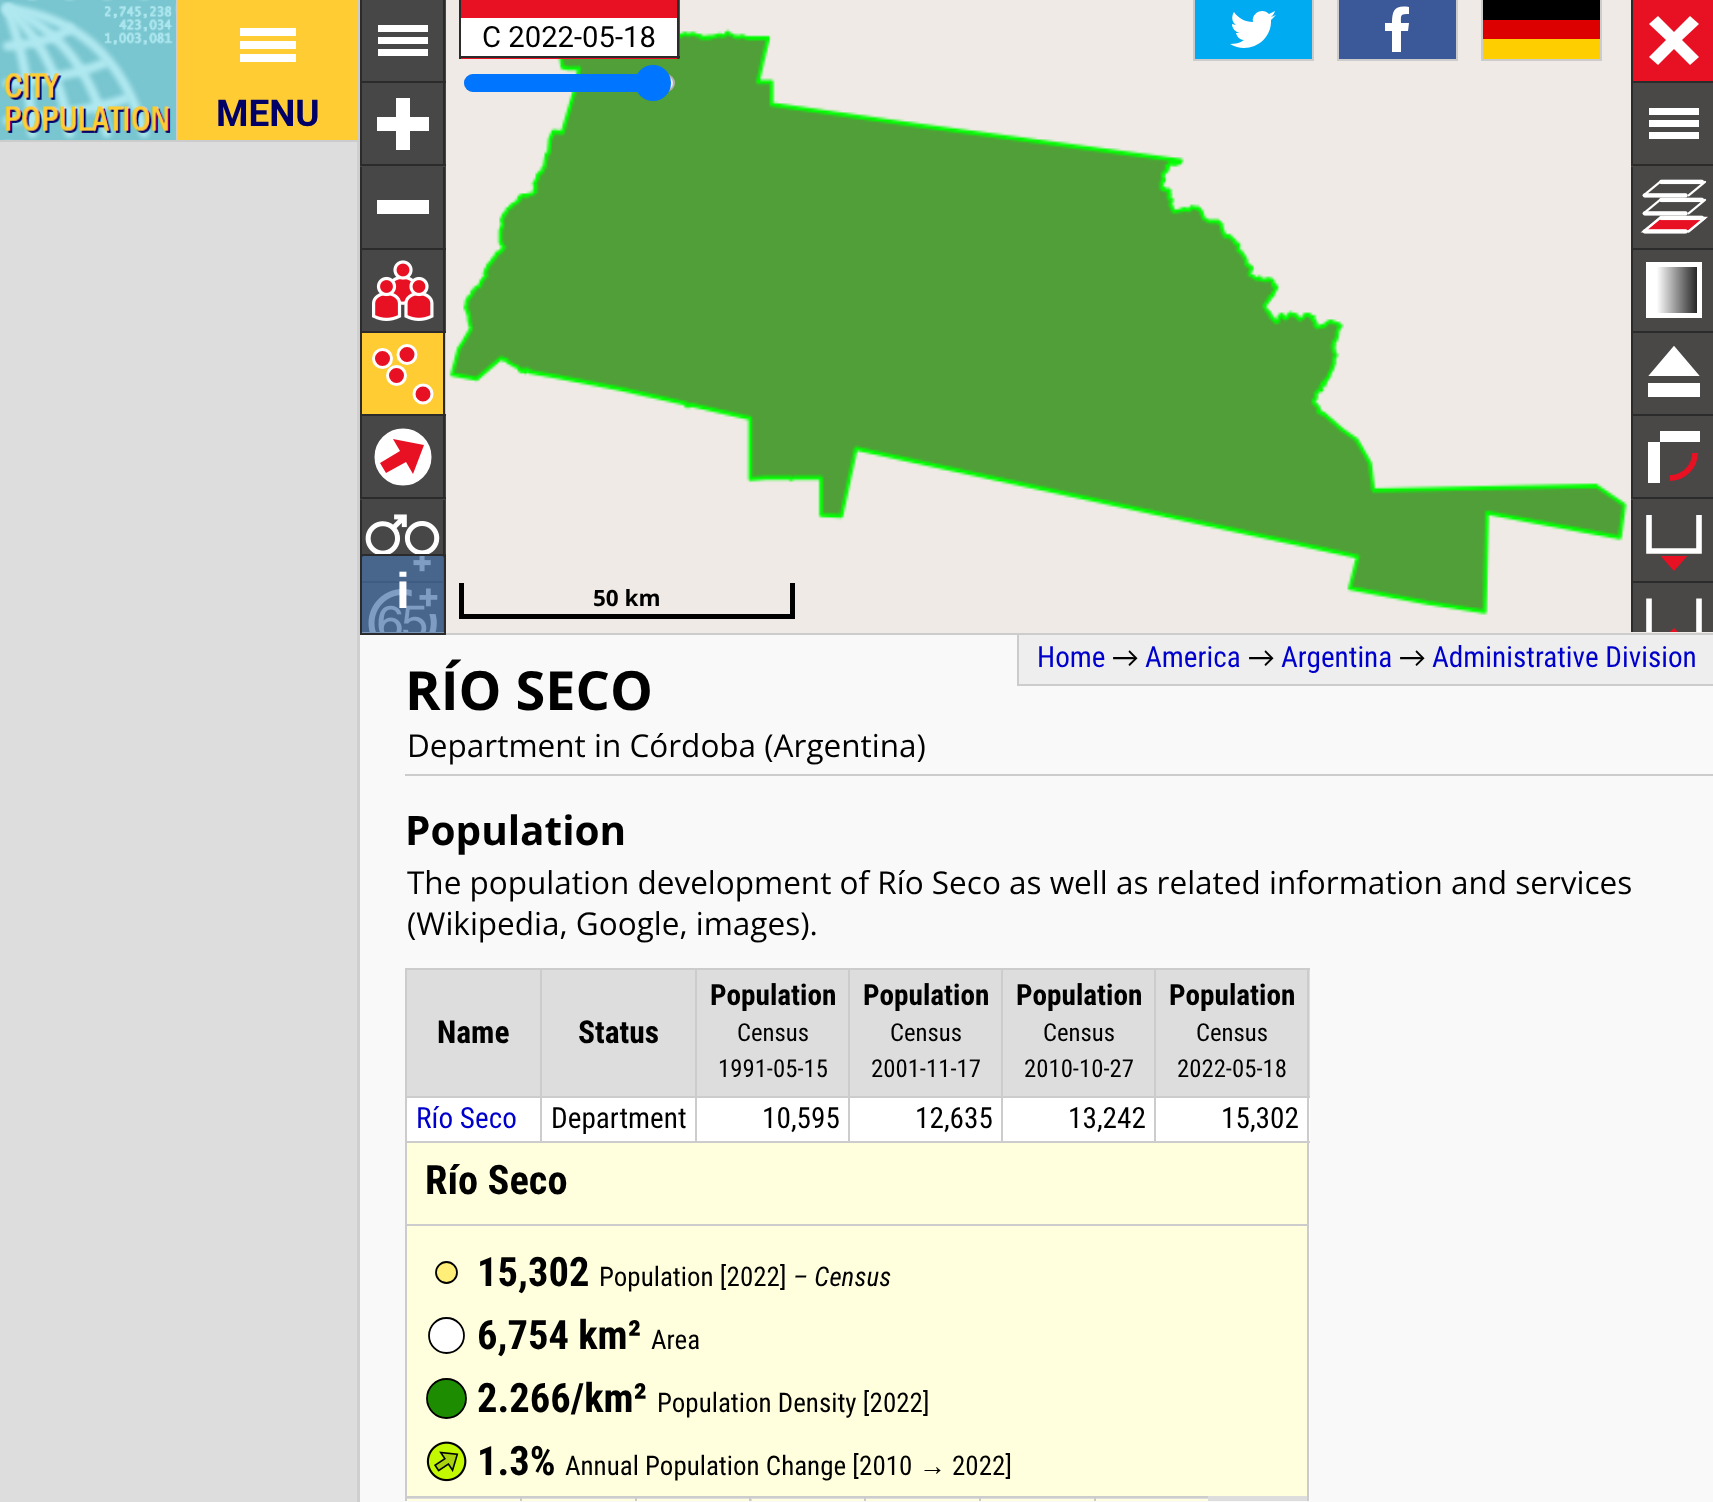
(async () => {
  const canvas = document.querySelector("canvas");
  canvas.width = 1713;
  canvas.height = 1502;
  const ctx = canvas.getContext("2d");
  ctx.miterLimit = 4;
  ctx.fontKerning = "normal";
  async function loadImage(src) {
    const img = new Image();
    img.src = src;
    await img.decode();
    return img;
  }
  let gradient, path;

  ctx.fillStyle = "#f9f9f9";
  ctx.fillRect(0, 0, 1713, 1502);
  ctx.drawImage(await loadImage("img/1.png"), 0, 0, 176, 140);
  for (const [x, y, w, h, color] of [
    [176, 0, 2, 142, "#cccccc"],
    [0, 140, 178, 2, "#cccccc"],
    [178, 0, 180, 140, "#ffcc33"],
    [358, 0, 2, 142, "#cccccc"],
    [178, 140, 182, 2, "#cccccc"],
    [240, 28, 56, 8, "#ffffff"],
    [240, 41, 56, 8, "#ffffff"],
    [240, 54, 56, 8, "#ffffff"],
  ]) {
    ctx.fillStyle = color;
    ctx.fillRect(x, y, w, h);
  }
  ctx.fillStyle = "#f0eae6";
  ctx.beginPath();
  ctx.rect(361, -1, 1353, 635);
  ctx.fill();
  ctx.strokeStyle = "#cccccc";
  ctx.lineWidth = 2;
  ctx.stroke();
  for (const [x, y, w, h, color] of [
    [360, 0, 86, 632, "rgba(43, 43, 43, 0.4)"],
    [362, 0, 84, 81, "rgba(43, 43, 43, 0.75)"],
    [360, 81, 86, 2, "#2b2b2b"],
    [360, 0, 2, 81, "#2b2b2b"],
    [378, 25, 50, 7, "#ffffff"],
    [443, 0, 2, 81, "#2b2b2b"],
    [378, 37, 50, 7, "#ffffff"],
    [378, 49, 50, 7, "#ffffff"],
    [360, 83, 86, 84, "rgba(43, 43, 43, 0.75)"],
    [360, 164, 86, 2, "#2b2b2b"],
    [360, 83, 2, 81, "#2b2b2b"],
    [377, 117, 52, 14, "#ffffff"],
    [396, 98, 14, 52, "#ffffff"],
    [443, 83, 2, 81, "#2b2b2b"],
    [362, 167, 84, 81, "rgba(43, 43, 43, 0.75)"],
    [360, 248, 86, 2, "#2b2b2b"],
    [360, 167, 2, 81, "#2b2b2b"],
    [377, 200, 52, 14, "#ffffff"],
    [443, 167, 2, 81, "#2b2b2b"],
    [362, 250, 84, 81, "rgba(43, 43, 43, 0.75)"],
    [360, 331, 86, 2, "#2b2b2b"],
    [360, 250, 2, 81, "#2b2b2b"],
  ]) {
    ctx.fillStyle = color;
    ctx.fillRect(x, y, w, h);
  }
  ctx.drawImage(await loadImage("img/2.png"), 372, 260, 62, 61);
  for (const [x, y, w, h, color] of [
    [443, 250, 2, 81, "#2b2b2b"],
    [362, 333, 84, 81, "#ffcc33"],
    [360, 414, 86, 2, "#2b2b2b"],
    [360, 333, 2, 81, "#2b2b2b"],
  ]) {
    ctx.fillStyle = color;
    ctx.fillRect(x, y, w, h);
  }
  ctx.fillStyle = "#e81123";
  ctx.beginPath();
  ctx.arc(382.5, 358.5, 9, 0, Math.PI * 2);
  ctx.fill();
  ctx.strokeStyle = "#ffffff";
  ctx.lineWidth = 3;
  ctx.stroke();
  ctx.beginPath();
  ctx.arc(407, 354.5, 9, 0, Math.PI * 2);
  ctx.fill();
  ctx.stroke();
  ctx.fillStyle = "#2b2b2b";
  ctx.fillRect(443, 333, 2, 81);
  ctx.fillStyle = "#e81123";
  ctx.beginPath();
  ctx.arc(396.5, 375.5, 9, 0, Math.PI * 2);
  ctx.fill();
  ctx.stroke();
  ctx.beginPath();
  ctx.arc(423, 394, 9, 0, Math.PI * 2);
  ctx.fill();
  ctx.stroke();
  for (const [x, y, w, h, color] of [
    [360, 416, 86, 84, "rgba(43, 43, 43, 0.75)"],
    [360, 497, 86, 2, "#2b2b2b"],
    [360, 416, 2, 81, "#2b2b2b"],
  ]) {
    ctx.fillStyle = color;
    ctx.fillRect(x, y, w, h);
  }
  ctx.fillStyle = "#ffffff";
  ctx.beginPath();
  ctx.arc(403, 457, 27.5, 0, Math.PI * 2);
  ctx.fill();
  ctx.lineWidth = 2;
  ctx.stroke();
  ctx.fillStyle = "#2b2b2b";
  ctx.fillRect(443, 416, 2, 81);
  ctx.fillStyle = "#e81123";
  path = new Path2D("M380 463L400 451L393 439L424 445L413 474L406 462L386 473Z");
  ctx.fill(path);
  for (const [x, y, w, h, color] of [
    [362, 500, 84, 81, "rgba(43, 43, 43, 0.75)"],
    [360, 581, 86, 2, "#2b2b2b"],
    [360, 500, 2, 54, "#2b2b2b"],
  ]) {
    ctx.fillStyle = color;
    ctx.fillRect(x, y, w, h);
  }
  ctx.drawImage(await loadImage("img/3.png"), 365, 514, 75, 58);
  ctx.fillRect(443, 500, 2, 81);
  ctx.fillStyle = "rgba(43, 43, 43, 0.75)";
  ctx.fillRect(362, 583, 81, 49);
  ctx.drawImage(await loadImage("img/4.png"), 368, 588, 70, 44);
  ctx.fillStyle = "#2b2b2b";
  ctx.fillRect(443, 583, 1, 49);
  ctx.drawImage(await loadImage("img/6.png"), 449, 28, 1179, 587);
  for (const [x, y, w, h, color] of [
    [461, 0, 219, 59, "#e81123"],
    [677, 0, 2, 59, "#2b2b2b"],
    [459, 56, 221, 2, "#2b2b2b"],
    [459, 0, 2, 59, "#2b2b2b"],
    [461, 18, 216, 38, "#ffffff"],
  ]) {
    ctx.fillStyle = color;
    ctx.fillRect(x, y, w, h);
  }
  ctx.fillStyle = "#efefef";
  ctx.beginPath();
  ctx.roundRect(465, 75, 209, 16, 8);
  ctx.fill();
  ctx.strokeStyle = "#b2b2b2";
  ctx.stroke();
  ctx.fillStyle = "#0075ff";
  ctx.beginPath();
  ctx.roundRect(464, 74, 189, 18, [9, 0, 0, 9]);
  ctx.fill();
  ctx.beginPath();
  ctx.arc(653, 83, 18, 0, Math.PI * 2);
  ctx.fill();
  for (const [x, y, w, h, color] of [
    [1633, 0, 80, 81, "#e81123"],
    [1631, 81, 82, 2, "#2b2b2b"],
    [1631, 0, 2, 81, "#2b2b2b"],
  ]) {
    ctx.fillStyle = color;
    ctx.fillRect(x, y, w, h);
  }
  ctx.fillStyle = "#ffffff";
  path = new Path2D("M1658 16L1674 32L1690 16L1699 24L1682 40L1699 57L1690 65L1674 49L1658 65L1649 57L1666 40L1649 24Z");
  ctx.fill(path);
  for (const [x, y, w, h, color] of [
    [1631, 83, 82, 84, "#494847"],
    [1631, 164, 82, 2, "#2b2b2b"],
    [1631, 83, 2, 81, "#2b2b2b"],
    [1649, 108, 50, 7, "#ffffff"],
    [1649, 120, 50, 7, "#ffffff"],
    [1649, 132, 50, 7, "#ffffff"],
    [1633, 167, 80, 81, "#494847"],
    [1631, 248, 82, 2, "#2b2b2b"],
    [1631, 167, 2, 81, "#2b2b2b"],
  ]) {
    ctx.fillStyle = color;
    ctx.fillRect(x, y, w, h);
  }
  ctx.drawImage(await loadImage("img/5.png"), 1640, 179, 68, 55);
  for (const [x, y, w, h, color] of [
    [1633, 250, 80, 81, "#494847"],
    [1631, 331, 82, 2, "#2b2b2b"],
    [1631, 250, 2, 81, "#2b2b2b"],
  ]) {
    ctx.fillStyle = color;
    ctx.fillRect(x, y, w, h);
  }
  gradient = ctx.createLinearGradient(1649, 265, 1704, 265);
  gradient.addColorStop(0.14, "#ffffff");
  gradient.addColorStop(1, "#000000");
  ctx.fillStyle = gradient;
  ctx.fillRect(1651, 267, 46, 46);
  ctx.strokeStyle = "#ffffff";
  ctx.lineWidth = 5;
  ctx.strokeRect(1648.5, 264.5, 51, 51);
  for (const [x, y, w, h, color] of [
    [1633, 333, 80, 81, "#494847"],
    [1631, 414, 82, 2, "#2b2b2b"],
    [1631, 333, 2, 81, "#2b2b2b"],
  ]) {
    ctx.fillStyle = color;
    ctx.fillRect(x, y, w, h);
  }
  ctx.fillStyle = "#ffffff";
  path = new Path2D("M1653 374H1695L1674 350Z");
  ctx.fill(path);
  path = new Path2D("M1653.5 373.5H1694.5L1674 349.5Z");
  ctx.lineWidth = 4.8;
  ctx.stroke(path);
  for (const [x, y, w, h, color] of [
    [1648, 383, 52, 14, "#ffffff"],
    [1631, 416, 82, 84, "#494847"],
    [1631, 497, 82, 2, "#2b2b2b"],
    [1631, 416, 2, 81, "#2b2b2b"],
    [1660, 431, 40, 11, "#ffffff"],
    [1648, 442, 12, 41, "#ffffff"],
  ]) {
    ctx.fillStyle = color;
    ctx.fillRect(x, y, w, h);
  }
  path = new Path2D("M1670 478C1684 478 1695 466.5 1695 453M1695 453C1695 466.5 1684 478 1670 478");
  ctx.strokeStyle = "#e81123";
  ctx.lineWidth = 5.8;
  ctx.stroke(path);
  for (const [x, y, w, h, color] of [
    [1633, 500, 80, 81, "#494847"],
    [1631, 581, 82, 2, "#2b2b2b"],
    [1631, 500, 2, 81, "#2b2b2b"],
  ]) {
    ctx.fillStyle = color;
    ctx.fillRect(x, y, w, h);
  }
  path = new Path2D("M1649 515V551H1699V515");
  ctx.strokeStyle = "#ffffff";
  ctx.lineWidth = 5.6;
  ctx.stroke(path);
  path = new Path2D("M1674 565L1669.5 560H1678.5Z");
  ctx.strokeStyle = "#e81123";
  ctx.lineWidth = 7.9;
  ctx.stroke(path);
  ctx.fillStyle = "#494847";
  ctx.fillRect(1633, 583, 80, 49);
  ctx.fillStyle = "#2b2b2b";
  ctx.fillRect(1631, 583, 2, 49);
  ctx.save();
  ctx.beginPath();
  ctx.rect(1634, 583, 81, 49);
  ctx.clip();
  path = new Path2D("M1649 598.5V648H1699V598.5");
  ctx.strokeStyle = "#ffffff";
  ctx.lineWidth = 5.6;
  ctx.stroke(path);
  path = new Path2D("M1674 633.5L1669.5 638H1678.5Z");
  ctx.strokeStyle = "#e81123";
  ctx.lineWidth = 7.9;
  ctx.stroke(path);
  ctx.restore();
  ctx.fillStyle = "rgba(255, 255, 255, 0.4)";
  ctx.beginPath();
  ctx.roundRect(360, 554, 86, 81, 9);
  ctx.fill();
  ctx.fillStyle = "rgba(0, 60, 136, 0.5)";
  ctx.beginPath();
  ctx.rect(361, 555, 84, 79);
  ctx.fill();
  ctx.strokeStyle = "#2b2b2b";
  ctx.lineWidth = 2;
  ctx.stroke();
  for (const [x, y, w, h, color] of [
    [790, 583, 5, 36, "#000000"],
    [459, 614, 335, 5, "#000000"],
    [459, 583, 5, 36, "#000000"],
    [1312, 0, 2, 61, "#cccccc"],
    [1193, 59, 121, 2, "#cccccc"],
    [1193, 0, 2, 61, "#cccccc"],
    [1195, 0, 117, 59, "#00abf1"],
  ]) {
    ctx.fillStyle = color;
    ctx.fillRect(x, y, w, h);
  }
  ctx.fillStyle = "#ffffff";
  path = new Path2D("M1276 15L1271 17C1273 15 1274 14 1275 11L1269 14C1263 7 1251 13 1253 22C1245 22 1238 18 1234 12C1231 17 1232 22 1236 25L1232 24C1232 28 1235 32 1240 33H1236C1237 37 1240 40 1244 40C1240 43 1235 44 1230 44C1248 55 1272 42 1271 20Z");
  ctx.fill(path);
  for (const [x, y, w, h, color] of [
    [1456, 0, 2, 61, "#cccccc"],
    [1337, 59, 121, 2, "#cccccc"],
    [1337, 0, 2, 61, "#cccccc"],
    [1339, 0, 117, 59, "#3b5998"],
  ]) {
    ctx.fillStyle = color;
    ctx.fillRect(x, y, w, h);
  }
  ctx.fillStyle = "#ffffff";
  path = new Path2D("M1401 52V31H1408L1409 23H1401C1401 15 1400 14 1409 14V7C1395 5 1392 10 1392 23H1385V31H1392V52Z");
  ctx.fill(path);
  for (const [x, y, w, h, color] of [
    [1600, 0, 2, 61, "#cccccc"],
    [1481, 59, 121, 2, "#cccccc"],
    [1481, 0, 2, 61, "#cccccc"],
    [1483, 0, 117, 20, "#000000"],
    [1483, 20, 117, 19, "#dd0000"],
    [1483, 39, 117, 20, "#ffce00"],
    [0, 142, 357, 1360, "#dddddd"],
    [357, 142, 3, 1360, "#cfcfcf"],
    [405, 774, 1308, 2, "#cccccc"],
    [1019, 635, 694, 49, "#eeeeee"],
    [1017, 684, 696, 2, "#cccccc"],
    [1017, 635, 2, 51, "#cccccc"],
    [405, 968, 905, 2, "#cccccc"],
    [542, 970, 768, 126, "#dddddd"],
    [542, 1098, 768, 43, "#ffffff"],
    [407, 1143, 903, 358, "#ffffdd"],
    [1307, 968, 2, 533, "#cccccc"],
    [405, 968, 2, 533, "#cccccc"],
    [407, 970, 133, 126, "#dddddd"],
    [1154, 1096, 156, 2, "#cccccc"],
    [405, 1141, 905, 2, "#cccccc"],
    [1154, 1096, 2, 47, "#cccccc"],
    [1001, 1096, 156, 2, "#cccccc"],
    [1001, 1096, 2, 47, "#cccccc"],
    [848, 1096, 156, 2, "#cccccc"],
    [848, 1096, 2, 47, "#cccccc"],
    [695, 1096, 156, 2, "#cccccc"],
    [695, 1096, 2, 47, "#cccccc"],
    [540, 1096, 158, 2, "#cccccc"],
    [540, 1096, 2, 47, "#cccccc"],
    [405, 1096, 137, 2, "#cccccc"],
    [540, 968, 2, 130, "#cccccc"],
    [695, 968, 2, 130, "#cccccc"],
    [848, 968, 2, 130, "#cccccc"],
    [1001, 968, 2, 130, "#cccccc"],
    [1154, 968, 2, 130, "#cccccc"],
    [407, 1098, 133, 43, "#ffffff"],
    [407, 1224, 900, 2, "#cccccc"],
  ]) {
    ctx.fillStyle = color;
    ctx.fillRect(x, y, w, h);
  }
  ctx.fillStyle = "#ffee77";
  ctx.beginPath();
  ctx.arc(446.5, 1272.5, 10.5, 0, Math.PI * 2);
  ctx.fill();
  ctx.strokeStyle = "#000000";
  ctx.lineWidth = 1.8;
  ctx.stroke();
  ctx.fillStyle = "#ffffff";
  ctx.beginPath();
  ctx.arc(446.5, 1335.5, 17.5, 0, Math.PI * 2);
  ctx.fill();
  ctx.stroke();
  ctx.fillStyle = "#1e8c00";
  ctx.beginPath();
  ctx.arc(446.5, 1398.5, 19.5, 0, Math.PI * 2);
  ctx.fill();
  ctx.stroke();
  ctx.drawImage(await loadImage("img/7.png"), 426, 1441, 41, 41);
  for (const [x, y, w, h, color] of [
    [407, 1496, 900, 5, "#dddddd"],
    [407, 1496, 801, 2, "#cccccc"],
    [407, 1499, 113, 2, "#ffffdd"],
    [520, 1496, 2, 5, "#cccccc"],
    [522, 1499, 113, 2, "#ffffdd"],
    [635, 1496, 2, 5, "#cccccc"],
    [637, 1499, 112, 2, "#ffffdd"],
    [749, 1496, 2, 5, "#cccccc"],
    [752, 1499, 112, 2, "#ffffdd"],
    [864, 1496, 2, 5, "#cccccc"],
    [866, 1499, 113, 2, "#ffffdd"],
    [979, 1496, 2, 5, "#cccccc"],
    [981, 1499, 113, 2, "#ffffdd"],
    [1094, 1496, 2, 5, "#cccccc"],
    [1096, 1499, 112, 2, "#ffffdd"],
  ]) {
    ctx.fillStyle = color;
    ctx.fillRect(x, y, w, h);
  }
  ctx.font = "bold 37px Roboto";
  ctx.fillStyle = "#000066";
  ctx.fillText("MENU", 216, 126);
  ctx.font = "29.25px Roboto";
  ctx.fillStyle = "#000000";
  ctx.fillText("C 2022-05-18", 482, 47);
  ctx.font = "bold 50px Liberation Sans";
  ctx.fillStyle = "#ffffff";
  ctx.fillText("i", 396, 608);
  ctx.font = "bold 22.5px Open Sans";
  ctx.fillStyle = "#000000";
  ctx.fillText("50 km", 593, 606);
  ctx.font = "bold 54px Open Sans";
  ctx.fillText("RÍO SECO", 405, 710);
  ctx.font = "31.5px Open Sans";
  ctx.fillText("Department in Córdoba (Argentina)", 407, 757);
  ctx.font = "29.25px Roboto Condensed";
  ctx.fillStyle = "#0000cc";
  ctx.fillText("Home", 1037, 667);
  ctx.font = "29.25px Carlito";
  ctx.fillStyle = "#000000";
  ctx.fillText("→", 1112, 667);
  ctx.font = "29.25px Roboto Condensed";
  ctx.fillStyle = "#0000cc";
  ctx.fillText("America", 1145, 667);
  ctx.font = "29.25px Carlito";
  ctx.fillStyle = "#000000";
  ctx.fillText("→", 1248, 667);
  ctx.font = "29.25px Roboto Condensed";
  ctx.fillStyle = "#0000cc";
  ctx.fillText("Argentina", 1281, 667);
  ctx.font = "29.25px Carlito";
  ctx.fillStyle = "#000000";
  ctx.fillText("→", 1399, 667);
  ctx.font = "29.25px Roboto Condensed";
  ctx.fillStyle = "#0000cc";
  ctx.fillText("Administrative Division", 1432, 667);
  ctx.font = "bold 40.5px Open Sans";
  ctx.fillStyle = "#000000";
  ctx.fillText("Population", 405, 845);
  ctx.font = "31.5px Open Sans";
  ctx.fillText("The population development of Río Seco as well as related information and services", 407, 894);
  ctx.fillText("(Wikipedia, Google, images).", 407, 935);
  ctx.font = "bold 31.5px Roboto Condensed";
  ctx.fillText("Name", 437, 1043);
  ctx.fillText("Status", 578, 1043);
  ctx.font = "bold 29.25px Roboto Condensed";
  ctx.fillText("Population", 710, 1005);
  ctx.font = "24.75px Roboto Condensed";
  ctx.fillText("Census", 737, 1041);
  ctx.fillText("1991-05-15", 718, 1077);
  ctx.font = "bold 29.25px Roboto Condensed";
  ctx.fillText("Population", 863, 1005);
  ctx.font = "24.75px Roboto Condensed";
  ctx.fillText("Census", 890, 1041);
  ctx.fillText("2001-11-17", 871, 1077);
  ctx.font = "bold 29.25px Roboto Condensed";
  ctx.fillText("Population", 1016, 1005);
  ctx.font = "24.75px Roboto Condensed";
  ctx.fillText("Census", 1043, 1041);
  ctx.fillText("2010-10-27", 1024, 1077);
  ctx.font = "bold 29.25px Roboto Condensed";
  ctx.fillText("Population", 1169, 1005);
  ctx.font = "24.75px Roboto Condensed";
  ctx.fillText("Census", 1196, 1041);
  ctx.fillText("2022-05-18", 1177, 1077);
  ctx.font = "29.25px Roboto Condensed";
  ctx.fillStyle = "#0000cc";
  ctx.fillText("Río Seco", 416, 1128);
  ctx.fillStyle = "#000000";
  for (const [text, x, y] of [
    ["Department", 551, 1128],
    ["10,595", 762, 1128],
    ["12,635", 915, 1128],
    ["13,242", 1068, 1128],
    ["15,302", 1221, 1128],
  ]) {
    ctx.fillText(text, x, y);
  }
  ctx.font = "bold 40.5px Roboto Condensed";
  ctx.fillText("Río Seco", 425, 1194);
  ctx.fillText("15,302", 477, 1286);
  ctx.font = "27px Roboto Condensed";
  ctx.fillText("Population [2022]", 599, 1286);
  ctx.font = "italic 27px Roboto Condensed";
  ctx.fillText("– Census", 793, 1286);
  ctx.font = "bold 40.5px Roboto Condensed";
  ctx.fillText("6,754 km²", 477, 1349);
  ctx.font = "27px Roboto Condensed";
  ctx.fillText("Area", 651, 1349);
  ctx.font = "bold 40.5px Roboto Condensed";
  ctx.fillText("2.266/km²", 477, 1412);
  ctx.font = "27px Roboto Condensed";
  ctx.fillText("Population Density [2022]", 657, 1412);
  ctx.font = "bold 40.5px Roboto Condensed";
  ctx.fillText("1.3%", 477, 1475);
  ctx.font = "27px Roboto Condensed";
  ctx.fillText("Annual Population Change [2010", 565, 1475);
  ctx.font = "27px Liberation Sans";
  ctx.fillText("→", 919, 1475);
  ctx.font = "27px Roboto Condensed";
  ctx.fillText("2022]", 952, 1475);
})();
